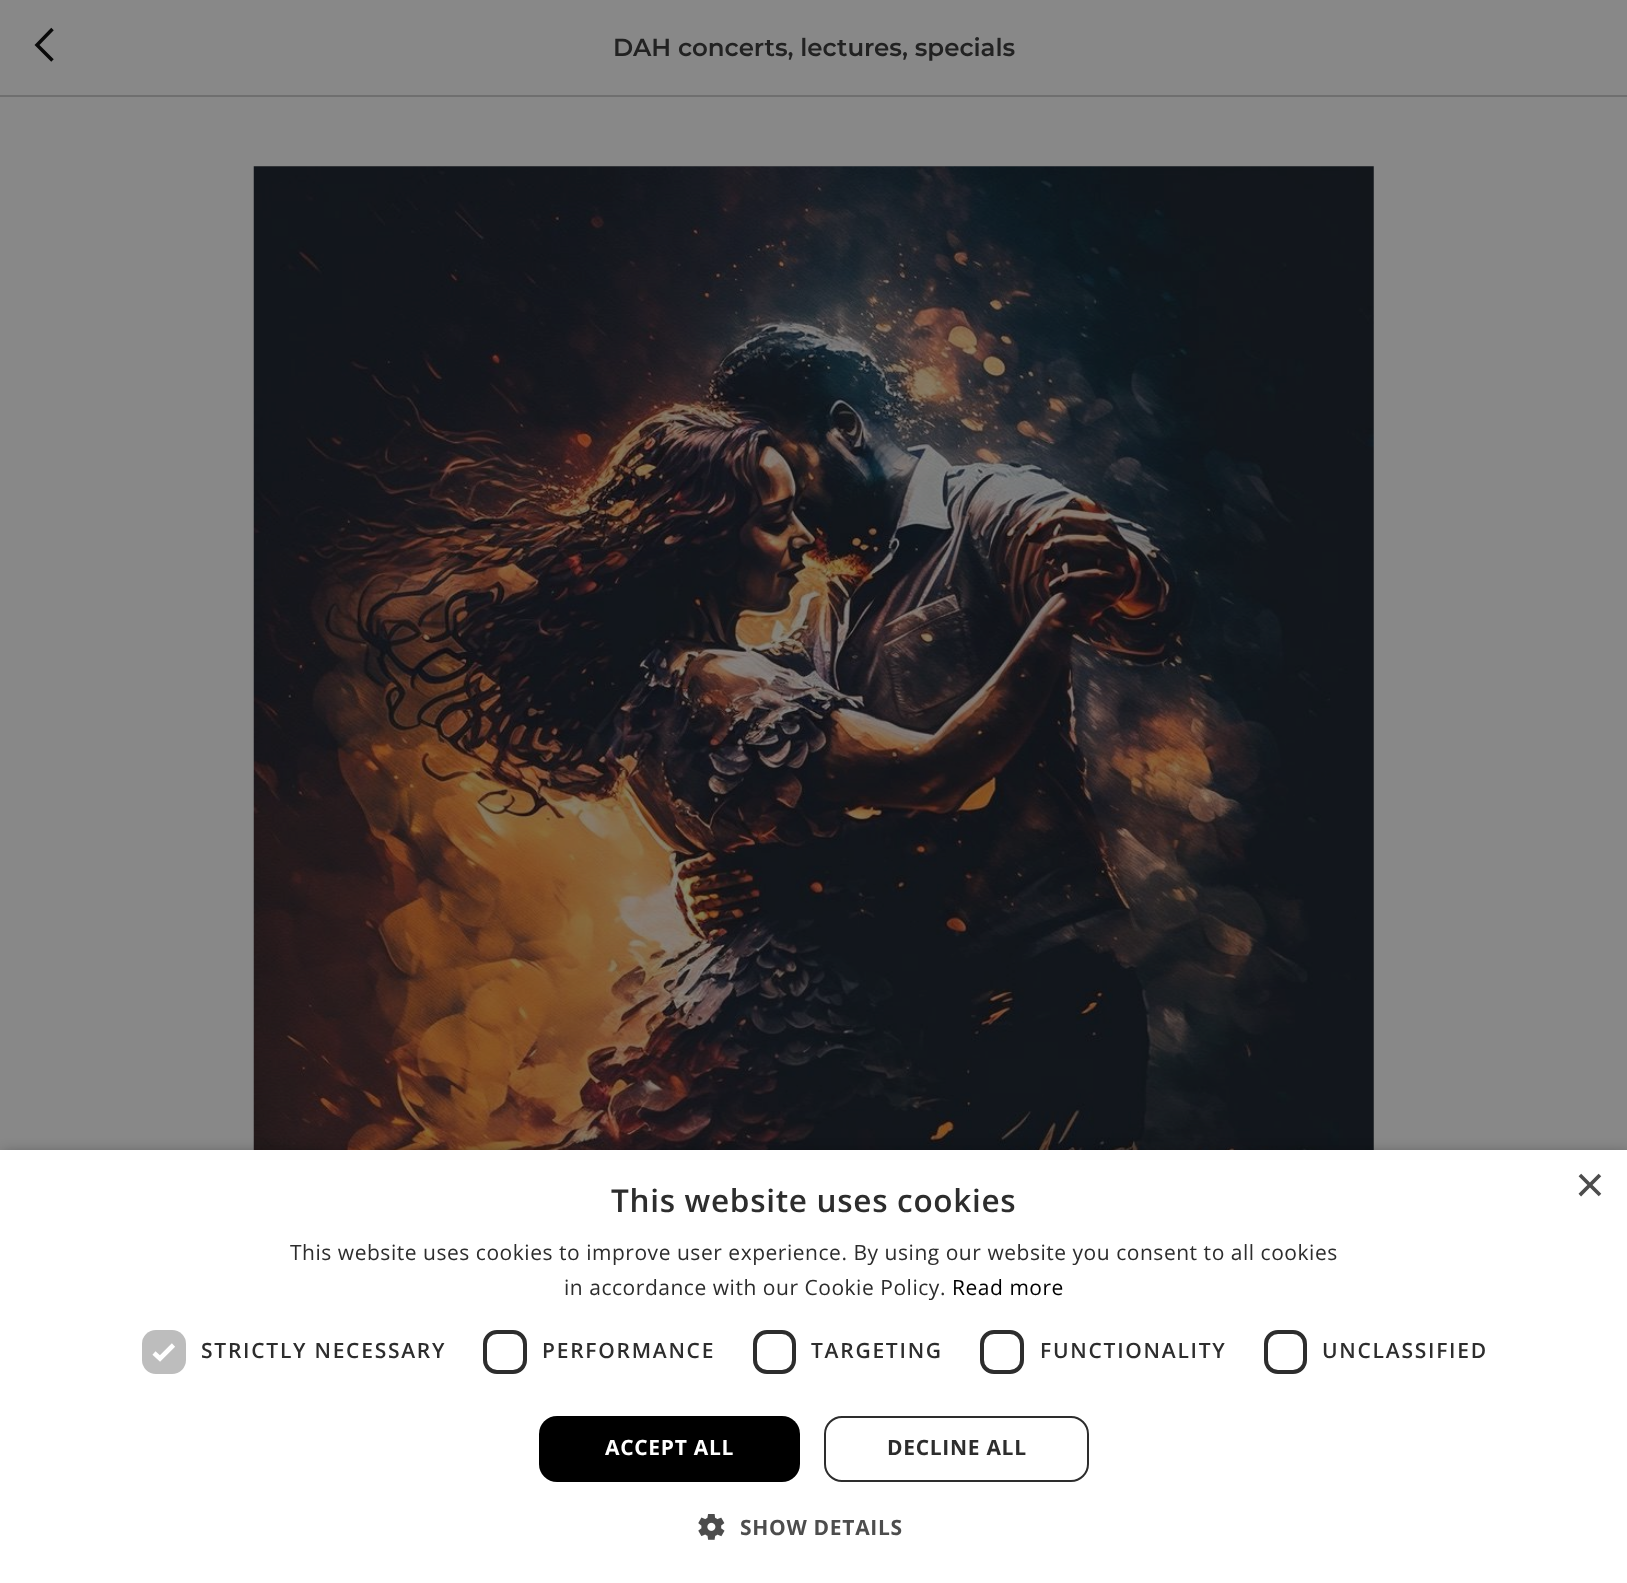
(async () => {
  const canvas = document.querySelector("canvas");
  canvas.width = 1627;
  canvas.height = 1583;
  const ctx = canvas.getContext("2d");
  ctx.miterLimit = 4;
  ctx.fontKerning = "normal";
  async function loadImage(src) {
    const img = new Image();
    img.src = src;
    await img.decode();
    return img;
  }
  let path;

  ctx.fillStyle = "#888888";
  ctx.fillRect(0, 0, 1627, 1583);
  ctx.fillStyle = "#6f6f6f";
  ctx.fillRect(0, 95, 1627, 2);
  path = new Path2D("M52.5 60.5L37 45L52.5 29");
  ctx.strokeStyle = "#090909";
  ctx.lineWidth = 3.5;
  ctx.stroke(path);
  ctx.drawImage(await loadImage("img/1.png"), 253, 166, 1121, 984);
  ctx.fillStyle = "rgba(0, 0, 0, 0.35)";
  ctx.filter = "blur(7px)";
  ctx.beginPath();
  ctx.rect(2, 1153, 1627, 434);
  ctx.fill();
  ctx.filter = "none";
  ctx.fillStyle = "#ffffff";
  ctx.fillRect(0, 1150, 1627, 433);
  ctx.fillStyle = "#bdbdbd";
  ctx.beginPath();
  ctx.roundRect(142, 1330, 44, 44, 14);
  ctx.fill();
  path = new Path2D("M154 1353L160 1358.5L173.5 1345");
  ctx.strokeStyle = "#ffffff";
  ctx.lineWidth = 4.6;
  ctx.stroke(path);
  ctx.beginPath();
  ctx.roundRect(485, 1332, 40, 40, 12);
  ctx.strokeStyle = "#2d2d2d";
  ctx.lineWidth = 4;
  ctx.stroke();
  ctx.beginPath();
  ctx.roundRect(755, 1332, 39, 40, 12);
  ctx.stroke();
  ctx.beginPath();
  ctx.roundRect(982, 1332, 40, 40, 12);
  ctx.stroke();
  ctx.beginPath();
  ctx.roundRect(1266, 1332, 39, 40, 12);
  ctx.stroke();
  ctx.fillStyle = "#000000";
  ctx.beginPath();
  ctx.roundRect(539, 1416, 261, 66, 18);
  ctx.fill();
  ctx.beginPath();
  ctx.roundRect(825, 1417, 263, 64, 17);
  ctx.lineWidth = 2;
  ctx.stroke();
  ctx.drawImage(await loadImage("img/2.png"), 698, 1514, 27, 26);
  ctx.font = "600 24.5px Montserrat";
  ctx.fillStyle = "#222222";
  ctx.fillText("DAH concerts, lectures, specials", 613, 56);
  ctx.font = "51px Liberation Sans";
  ctx.fillStyle = "#4d4d4d";
  ctx.fillText("×", 1575, 1202);
  ctx.letterSpacing = "0.7px";
  ctx.font = "600 31.5px Open Sans";
  ctx.fillStyle = "#2d2d2d";
  ctx.fillText("This website uses cookies", 611, 1212);
  ctx.letterSpacing = "0.53px";
  ctx.font = "21px Open Sans";
  ctx.fillText("This website uses cookies to improve user experience. By using our website you consent to all cookies", 290, 1260);
  ctx.fillText("in accordance with our Cookie Policy.", 564, 1295);
  ctx.fillStyle = "#000000";
  ctx.fillText("Read more", 952, 1295);
  ctx.letterSpacing = "1.75px";
  ctx.font = "600 21px Open Sans";
  ctx.fillStyle = "#2d2d2d";
  for (const [text, x, y] of [
    ["STRICTLY NECESSARY", 201, 1358],
    ["PERFORMANCE", 542, 1358],
    ["TARGETING", 811, 1358],
    ["FUNCTIONALITY", 1040, 1358],
    ["UNCLASSIFIED", 1322, 1358],
  ]) {
    ctx.fillText(text, x, y);
  }
  ctx.letterSpacing = "0.7px";
  ctx.font = "bold 21px Open Sans";
  ctx.fillStyle = "#ffffff";
  ctx.fillText("ACCEPT ALL", 605, 1455);
  ctx.fillStyle = "#2d2d2d";
  ctx.fillText("DECLINE ALL", 887, 1455);
  ctx.fillStyle = "#4d4d4d";
  ctx.fillText("SHOW DETAILS", 740, 1535);
})();
